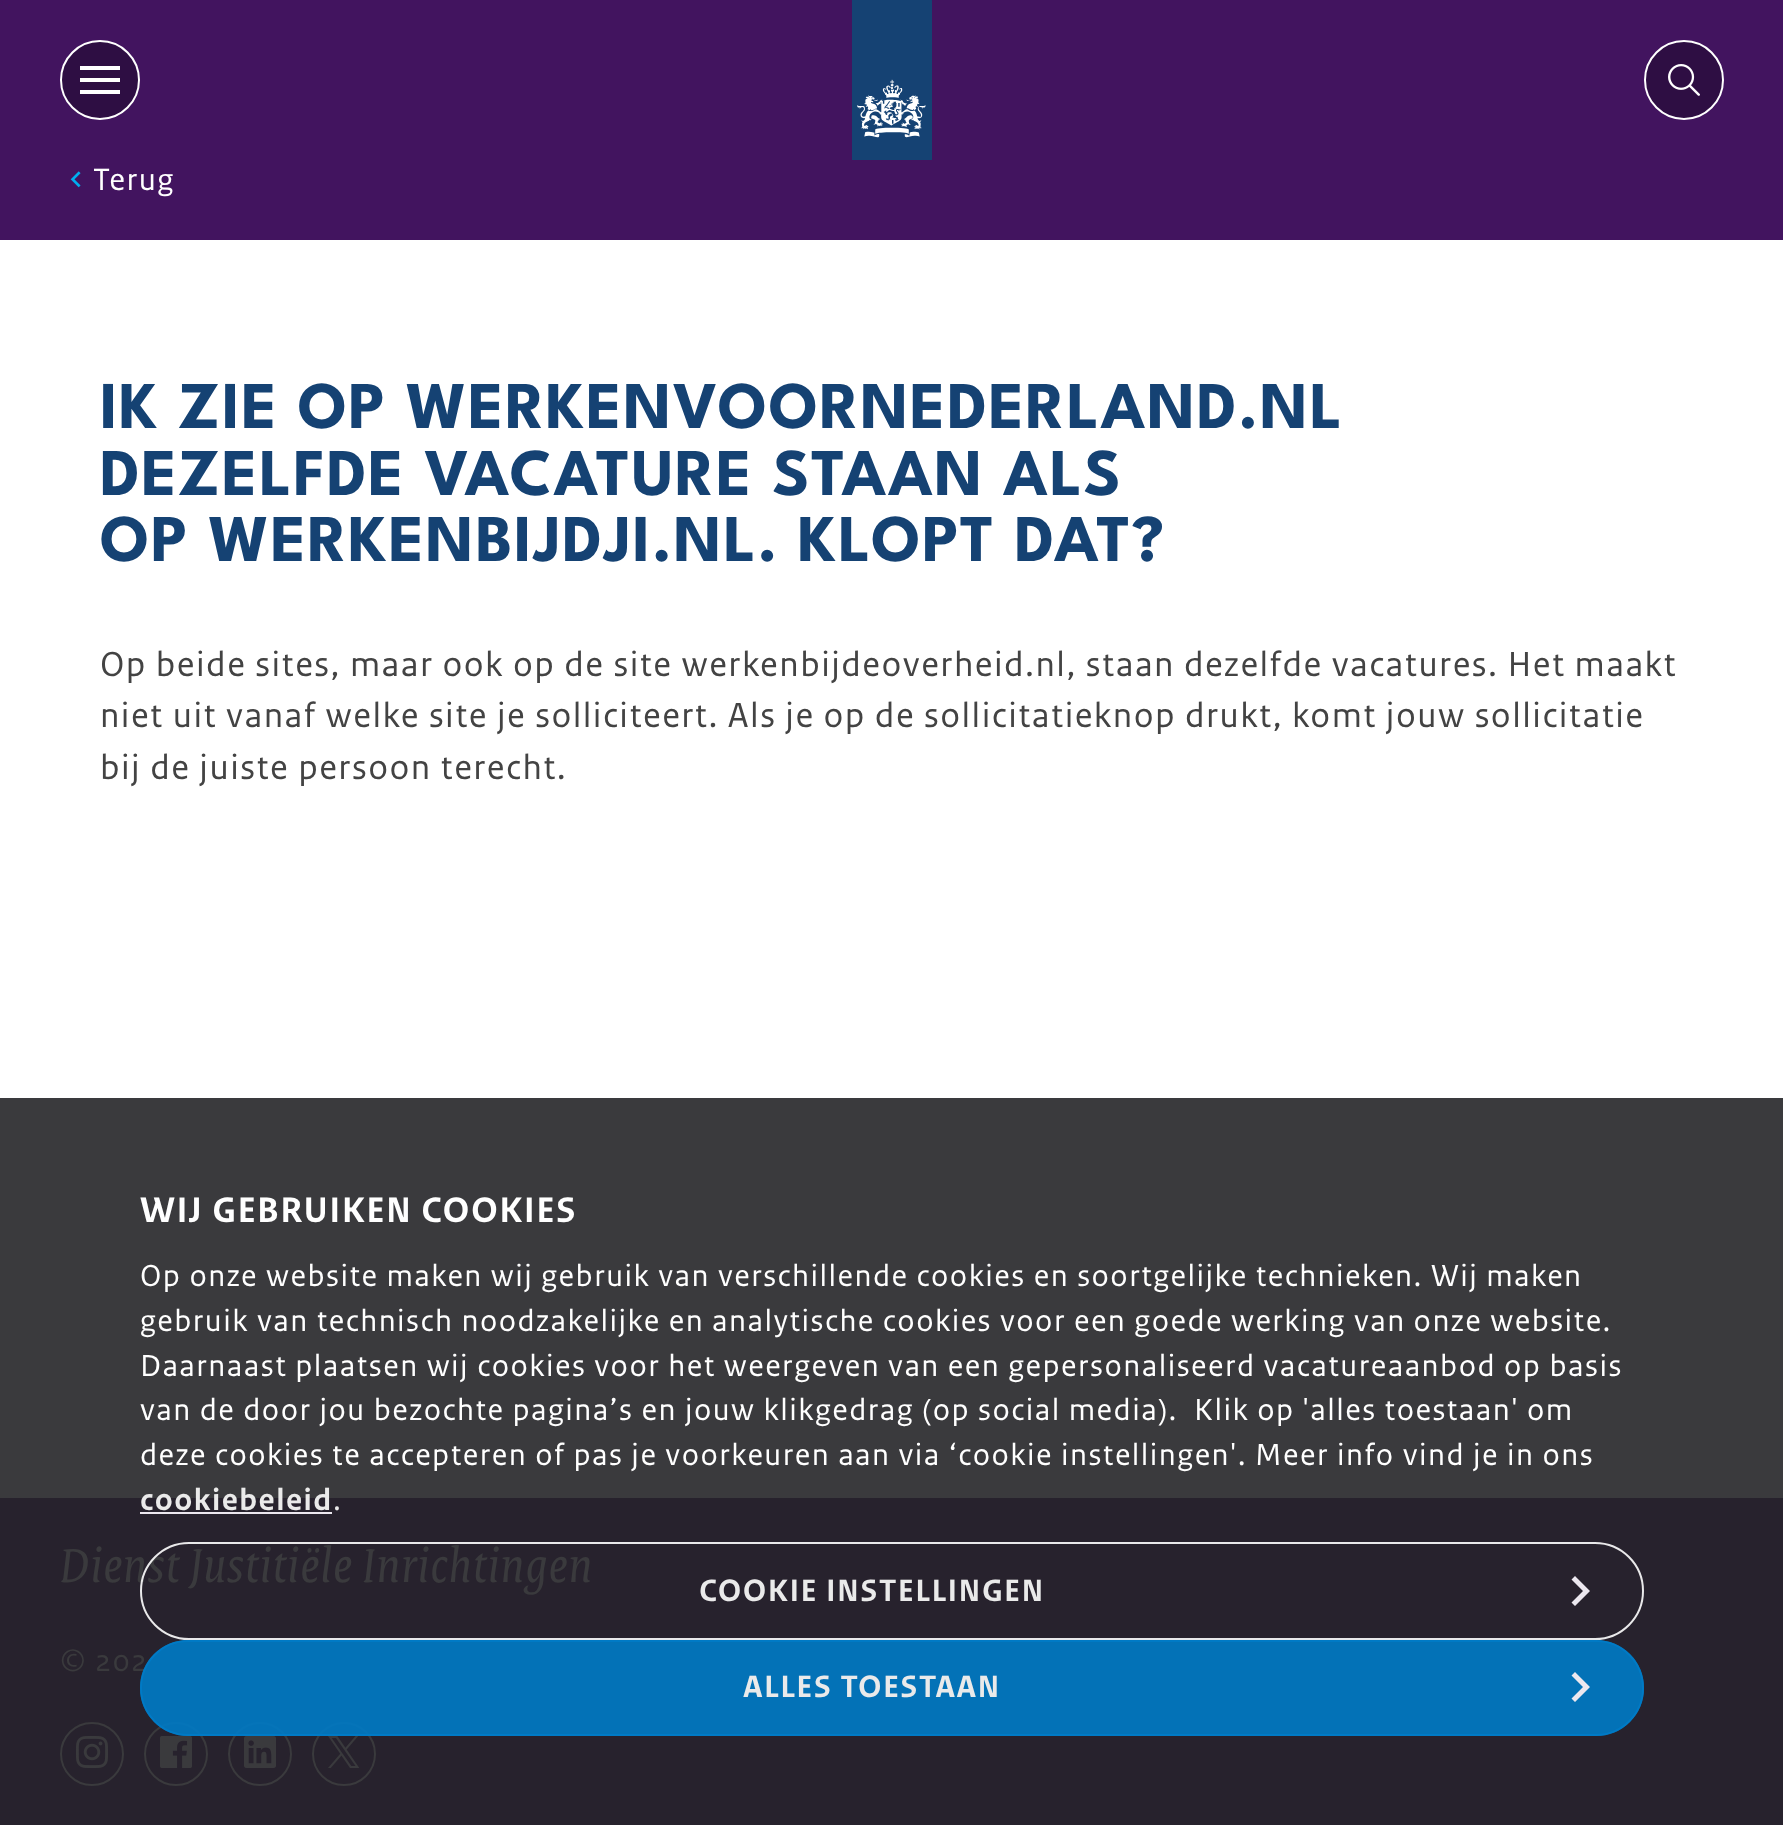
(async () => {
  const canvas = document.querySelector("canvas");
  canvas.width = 1783;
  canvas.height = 1825;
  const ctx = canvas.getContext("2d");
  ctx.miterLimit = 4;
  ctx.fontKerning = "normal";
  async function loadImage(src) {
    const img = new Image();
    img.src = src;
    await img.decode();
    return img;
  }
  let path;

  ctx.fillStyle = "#ffffff";
  ctx.fillRect(0, 0, 1783, 1825);
  ctx.fillStyle = "#3a3a3d";
  ctx.fillRect(0, 1098, 1783, 400);
  ctx.fillStyle = "#42145f";
  ctx.fillRect(0, 0, 1783, 240);
  ctx.fillStyle = "#2e0e43";
  ctx.beginPath();
  ctx.arc(100, 80, 39, 0, Math.PI * 2);
  ctx.fill();
  ctx.strokeStyle = "#ffffff";
  ctx.lineWidth = 2;
  ctx.stroke();
  for (const [x, y, w, h, color] of [
    [80, 78, 40, 4, "#ffffff"],
    [80, 66, 40, 4, "#ffffff"],
    [80, 90, 40, 4, "#ffffff"],
  ]) {
    ctx.fillStyle = color;
    ctx.fillRect(x, y, w, h);
  }
  ctx.drawImage(await loadImage("img/1.png"), 852, 0, 80, 160);
  ctx.fillStyle = "#2e0e43";
  ctx.beginPath();
  ctx.arc(1684, 80, 39, 0, Math.PI * 2);
  ctx.fill();
  ctx.stroke();
  ctx.drawImage(await loadImage("img/2.png"), 1668, 64, 32, 32);
  ctx.drawImage(await loadImage("img/3.png"), 70, 171, 11, 17);
  ctx.fillStyle = "#27222d";
  ctx.fillRect(0, 1498, 1783, 327);
  ctx.beginPath();
  ctx.arc(92, 1754, 31, 0, Math.PI * 2);
  ctx.strokeStyle = "#3a3a3d";
  ctx.stroke();
  ctx.drawImage(await loadImage("img/4.png"), 76, 1736, 32, 32);
  ctx.beginPath();
  ctx.arc(176, 1754, 31, 0, Math.PI * 2);
  ctx.stroke();
  ctx.drawImage(await loadImage("img/5.png"), 160, 1736, 32, 32);
  ctx.beginPath();
  ctx.arc(260, 1754, 31, 0, Math.PI * 2);
  ctx.stroke();
  ctx.drawImage(await loadImage("img/6.png"), 244, 1736, 32, 32);
  ctx.beginPath();
  ctx.arc(344, 1754, 31, 0, Math.PI * 2);
  ctx.stroke();
  ctx.drawImage(await loadImage("img/7.png"), 328, 1736, 32, 32);
  ctx.fillStyle = "#ece8ef";
  ctx.fillRect(140, 1512, 192, 2);
  ctx.letterSpacing = "1.46px";
  ctx.font = "32.6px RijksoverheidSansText";
  ctx.fillStyle = "#ffffff";
  ctx.fillText("Terug", 93, 190);
  ctx.font = "bold 66.75px League Spartan";
  ctx.fillStyle = "#154273";
  for (const [text, x, y] of [
    ["IK ZIE OP WERKENVOORNEDERLAND.NL", 100, 428],
    ["DEZELFDE VACATURE STAAN ALS", 100, 495],
    ["OP WERKENBIJDJI.NL. KLOPT DAT?", 100, 561],
  ]) {
    ctx.fillText(text, x, y);
  }
  ctx.font = "36.6px RijksoverheidSansText";
  ctx.fillStyle = "#434343";
  for (const [text, x, y] of [
    ["Op beide sites, maar ook op de site werkenbijdeoverheid.nl, staan dezelfde vacatures. Het maakt", 100, 676],
    ["niet uit vanaf welke site je solliciteert. Als je op de sollicitatieknop drukt, komt jouw sollicitatie", 100, 727],
    ["bij de juiste persoon terecht.", 100, 779],
  ]) {
    ctx.fillText(text, x, y);
  }
  ctx.font = "italic 51.5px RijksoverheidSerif";
  ctx.fillStyle = "#3a3a3d";
  ctx.fillText("Dienst Justitiële Inrichtingen", 60, 1582);
  ctx.font = "32.6px RijksoverheidSansText";
  ctx.fillText("© 202", 60, 1671);
  ctx.font = "bold 37.25px RijksoverheidSansText";
  ctx.fillStyle = "#ffffff";
  ctx.fillText("WIJ GEBRUIKEN COOKIES", 140, 1222);
  ctx.font = "32px RijksoverheidSansText";
  for (const [text, x, y] of [
    ["Op onze website maken wij gebruik van verschillende cookies en soortgelijke technieken. Wij maken", 140, 1286],
    ["gebruik van technisch noodzakelijke en analytische cookies voor een goede werking van onze website.", 140, 1331],
    ["Daarnaast plaatsen wij cookies voor het weergeven van een gepersonaliseerd vacatureaanbod op basis", 140, 1376],
    ["van de door jou bezochte pagina’s en jouw klikgedrag (op social media).  Klik op 'alles toestaan' om", 140, 1420],
    ["deze cookies te accepteren of pas je voorkeuren aan via ‘cookie instellingen'. Meer info vind je in ons", 140, 1465],
  ]) {
    ctx.fillText(text, x, y);
  }
  ctx.font = "bold 32px RijksoverheidSansText";
  ctx.fillStyle = "#eaeaea";
  ctx.fillText("cookiebeleid", 140, 1510);
  ctx.font = "32px RijksoverheidSansText";
  ctx.fillText(".", 333, 1510);
  ctx.beginPath();
  ctx.roundRect(141, 1543, 1502, 96, 48);
  ctx.strokeStyle = "rgba(255, 255, 255, 0.9)";
  ctx.stroke();
  ctx.font = "bold 32.6px RijksoverheidSansText";
  ctx.fillText("COOKIE INSTELLINGEN", 699, 1601);
  ctx.fillStyle = "#ece8ef";
  path = new Path2D("M1571.5 1602.5L1583 1591L1571.5 1579.5L1575 1576L1590 1591L1575 1606Z");
  ctx.fill(path);
  ctx.fillStyle = "rgba(0, 123, 199, 0.9)";
  ctx.beginPath();
  ctx.roundRect(140, 1640, 1504, 96, 48);
  ctx.fill();
  ctx.beginPath();
  ctx.roundRect(141, 1641, 1502, 94, 47);
  ctx.strokeStyle = "rgba(0, 123, 199, 0.9)";
  ctx.stroke();
  ctx.fillStyle = "#eaeaea";
  ctx.fillText("ALLES TOESTAAN", 743, 1697);
  ctx.fillStyle = "#ece8ef";
  path = new Path2D("M1571.5 1698.5L1583 1687L1571.5 1675.5L1575 1672L1590 1687L1575 1702Z");
  ctx.fill(path);
})();
